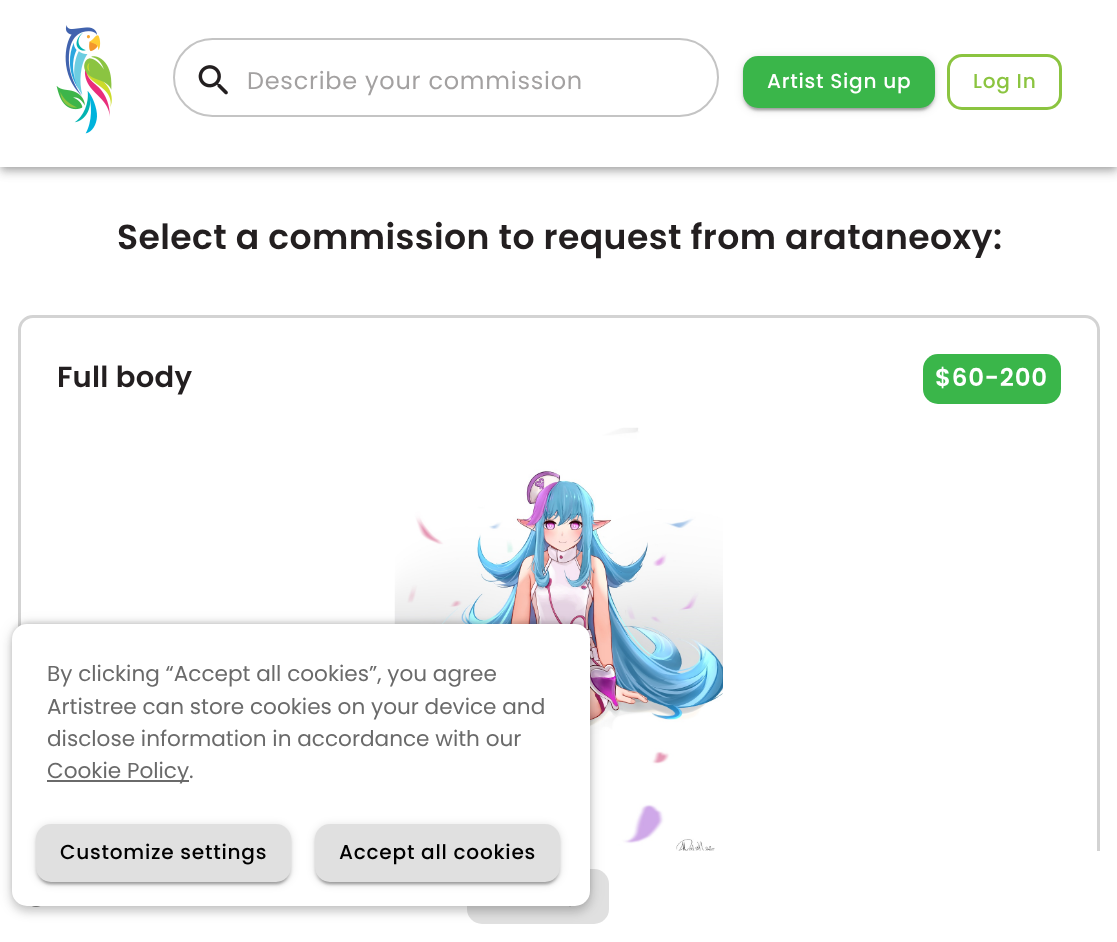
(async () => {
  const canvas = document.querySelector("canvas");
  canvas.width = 1117;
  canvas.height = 942;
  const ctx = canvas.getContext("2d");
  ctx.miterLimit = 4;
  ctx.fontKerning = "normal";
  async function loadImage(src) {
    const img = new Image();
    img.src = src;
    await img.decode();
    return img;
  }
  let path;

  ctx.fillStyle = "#ffffff";
  ctx.fillRect(0, 0, 1117, 942);
  ctx.save();
  path = new Path2D("M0 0H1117V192H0ZM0 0H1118V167H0Z");
  ctx.clip(path, "evenodd");
  ctx.fillStyle = "rgba(0, 0, 0, 0.12)";
  ctx.filter = "blur(7.5px)";
  ctx.beginPath();
  ctx.rect(0, 2, 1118, 166);
  ctx.fill();
  ctx.filter = "none";
  ctx.restore();
  ctx.save();
  path = new Path2D("M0 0H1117V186H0ZM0 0H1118V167H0Z");
  ctx.clip(path, "evenodd");
  ctx.fillStyle = "rgba(0, 0, 0, 0.14)";
  ctx.filter = "blur(4px)";
  ctx.beginPath();
  ctx.rect(0, 6, 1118, 167);
  ctx.fill();
  ctx.filter = "none";
  ctx.restore();
  ctx.save();
  path = new Path2D("M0 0H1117V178H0ZM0 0H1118V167H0Z");
  ctx.clip(path, "evenodd");
  ctx.fillStyle = "rgba(0, 0, 0, 0.2)";
  ctx.filter = "blur(3px)";
  ctx.beginPath();
  ctx.rect(2, 5, 1114, 163);
  ctx.fill();
  ctx.filter = "none";
  ctx.restore();
  ctx.fillStyle = "rgba(255, 255, 255, 0.9)";
  ctx.fillRect(0, 166, 1117, 1);
  ctx.drawImage(await loadImage("img/1.png"), 56, 25, 56, 109);
  ctx.drawImage(await loadImage("img/2.png"), 198, 65, 30, 30);
  ctx.beginPath();
  ctx.roundRect(174, 39, 544, 77, 38.5);
  ctx.strokeStyle = "#c4c4c4";
  ctx.lineWidth = 2;
  ctx.stroke();
  ctx.fillStyle = "rgba(0, 0, 0, 0.12)";
  ctx.filter = "blur(4px)";
  ctx.beginPath();
  ctx.roundRect(743, 57, 192, 53, 15);
  ctx.fill();
  ctx.filter = "none";
  ctx.fillStyle = "rgba(0, 0, 0, 0.14)";
  ctx.filter = "blur(1.5px)";
  ctx.beginPath();
  ctx.roundRect(743, 59, 192, 52, 15);
  ctx.fill();
  ctx.filter = "none";
  ctx.fillStyle = "rgba(0, 0, 0, 0.2)";
  ctx.filter = "blur(1px)";
  ctx.beginPath();
  ctx.roundRect(746, 63, 186, 47, 12);
  ctx.fill();
  ctx.filter = "none";
  ctx.fillStyle = "#3ab64a";
  ctx.beginPath();
  ctx.roundRect(743, 56, 192, 52, 15);
  ctx.fill();
  ctx.beginPath();
  ctx.roundRect(948.5, 55.5, 112, 53, 13.5);
  ctx.strokeStyle = "#8bc440";
  ctx.lineWidth = 3;
  ctx.stroke();
  ctx.save();
  ctx.beginPath();
  ctx.rect(6, 167, 1106, 684);
  ctx.clip();
  ctx.beginPath();
  ctx.roundRect(19.5, 316.5, 1079, 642, 13.5);
  ctx.strokeStyle = "#d3d3d3";
  ctx.stroke();
  ctx.restore();
  ctx.beginPath();
  ctx.roundRect(923, 354, 138, 50, 15);
  ctx.fill();
  ctx.drawImage(await loadImage("img/3.png"), 394, 427, 329, 424);
  ctx.drawImage(await loadImage("img/4.png"), 32, 906, 9, 1);
  ctx.fillStyle = "#e0e0e0";
  ctx.beginPath();
  ctx.roundRect(467, 869, 142, 55, 15);
  ctx.fill();
  ctx.drawImage(await loadImage("img/5.png"), 569, 906, 2, 1);
  ctx.fillStyle = "rgba(0, 0, 0, 0.12)";
  ctx.filter = "blur(7.5px)";
  ctx.beginPath();
  ctx.roundRect(12, 626, 578, 282, 15);
  ctx.fill();
  ctx.filter = "none";
  ctx.fillStyle = "rgba(0, 0, 0, 0.14)";
  ctx.filter = "blur(4px)";
  ctx.beginPath();
  ctx.roundRect(12, 630, 578, 282, 15);
  ctx.fill();
  ctx.filter = "none";
  ctx.fillStyle = "rgba(0, 0, 0, 0.2)";
  ctx.filter = "blur(3px)";
  ctx.beginPath();
  ctx.roundRect(14, 623, 574, 279, 14);
  ctx.fill();
  ctx.filter = "none";
  ctx.fillStyle = "#ffffff";
  ctx.beginPath();
  ctx.roundRect(12, 624, 578, 282, 15);
  ctx.fill();
  ctx.fillStyle = "#6a6a6a";
  ctx.fillRect(47, 780, 142, 2);
  ctx.fillStyle = "rgba(0, 0, 0, 0.12)";
  ctx.filter = "blur(4px)";
  ctx.beginPath();
  ctx.roundRect(36, 825, 255, 59, 15);
  ctx.fill();
  ctx.filter = "none";
  ctx.fillStyle = "rgba(0, 0, 0, 0.14)";
  ctx.filter = "blur(1.5px)";
  ctx.beginPath();
  ctx.roundRect(36, 827, 255, 58, 15);
  ctx.fill();
  ctx.filter = "none";
  ctx.fillStyle = "rgba(0, 0, 0, 0.2)";
  ctx.filter = "blur(1px)";
  ctx.beginPath();
  ctx.roundRect(39, 831, 249, 53, 12);
  ctx.fill();
  ctx.filter = "none";
  ctx.fillStyle = "#e0e0e0";
  ctx.beginPath();
  ctx.roundRect(36, 824, 255, 58, 15);
  ctx.fill();
  ctx.fillStyle = "rgba(0, 0, 0, 0.12)";
  ctx.filter = "blur(4px)";
  ctx.beginPath();
  ctx.roundRect(315, 825, 245, 59, 15);
  ctx.fill();
  ctx.filter = "none";
  ctx.fillStyle = "rgba(0, 0, 0, 0.14)";
  ctx.filter = "blur(1.5px)";
  ctx.beginPath();
  ctx.roundRect(315, 827, 245, 58, 15);
  ctx.fill();
  ctx.filter = "none";
  ctx.fillStyle = "rgba(0, 0, 0, 0.2)";
  ctx.filter = "blur(1px)";
  ctx.beginPath();
  ctx.roundRect(318, 831, 239, 53, 12);
  ctx.fill();
  ctx.filter = "none";
  ctx.fillStyle = "#e0e0e0";
  ctx.beginPath();
  ctx.roundRect(315, 824, 245, 58, 15);
  ctx.fill();
  ctx.letterSpacing = "0.75px";
  ctx.font = "24px Poppins";
  ctx.fillStyle = "#a3a1a1";
  ctx.fillText("Describe your commission", 247, 89);
  ctx.font = "500 20.1px Poppins";
  ctx.fillStyle = "#ffffff";
  ctx.fillText("Artist Sign up", 767, 88);
  ctx.fillStyle = "#8bc440";
  ctx.fillText("Log In", 973, 88);
  ctx.letterSpacing = "0.4px";
  ctx.font = "600 34.65px Poppins";
  ctx.fillStyle = "#231f20";
  ctx.fillText("Select a commission to request from arataneoxy:", 117, 249);
  ctx.letterSpacing = "0.25px";
  ctx.font = "600 29px Poppins";
  ctx.fillText("Full body", 57, 387);
  ctx.letterSpacing = "0.75px";
  ctx.font = "600 24.5px Poppins";
  ctx.fillStyle = "#ffffff";
  ctx.fillText("$60-200", 935, 386);
  ctx.letterSpacing = "0px";
  ctx.font = "21.6px Poppins";
  ctx.fillStyle = "#6a6a6a";
  for (const [text, x, y] of [
    ["By clicking “Accept all cookies”, you agree", 47, 681],
    ["Artistree can store cookies on your device and", 47, 714],
    ["disclose information in accordance with our", 47, 746],
    ["Cookie Policy.", 47, 778],
  ]) {
    ctx.fillText(text, x, y);
  }
  ctx.letterSpacing = "0.75px";
  ctx.font = "500 20.1px Poppins";
  ctx.fillStyle = "#000000";
  ctx.fillText("Customize settings", 60, 859);
  ctx.fillText("Accept all cookies", 339, 859);
})();
